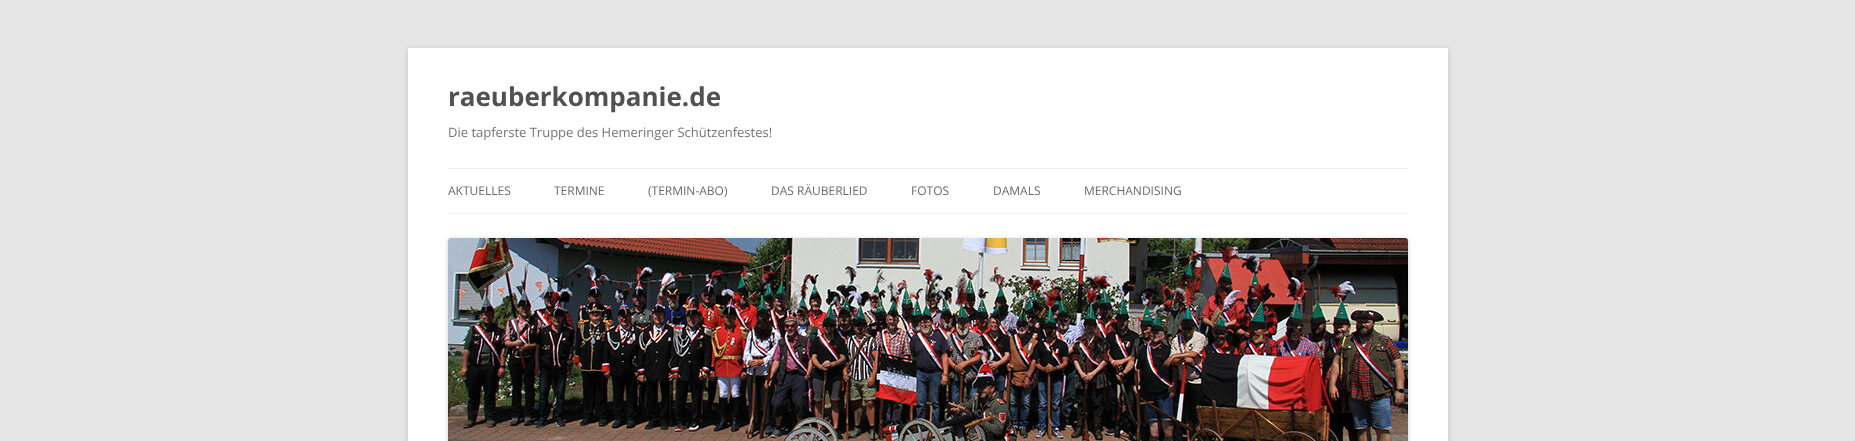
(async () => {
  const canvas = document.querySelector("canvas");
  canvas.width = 1855;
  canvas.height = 441;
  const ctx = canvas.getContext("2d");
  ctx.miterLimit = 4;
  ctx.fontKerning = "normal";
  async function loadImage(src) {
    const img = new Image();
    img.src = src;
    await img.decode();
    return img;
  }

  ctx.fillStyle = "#e6e6e6";
  ctx.fillRect(0, 0, 1855, 441);
  ctx.fillStyle = "rgba(100, 100, 100, 0.3)";
  ctx.filter = "blur(3px)";
  ctx.beginPath();
  ctx.rect(408, 50, 1040, 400);
  ctx.fill();
  ctx.filter = "none";
  for (const [x, y, w, h, color] of [
    [408, 48, 1040, 393, "#ffffff"],
    [448, 168, 960, 1, "#ededed"],
    [448, 213, 960, 1, "#ededed"],
  ]) {
    ctx.fillStyle = color;
    ctx.fillRect(x, y, w, h);
  }
  ctx.fillStyle = "rgba(0, 0, 0, 0.2)";
  ctx.filter = "blur(2px)";
  ctx.beginPath();
  ctx.roundRect(448, 239, 960, 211, 3);
  ctx.fill();
  ctx.filter = "none";
  ctx.drawImage(await loadImage("img/1.png"), 448, 238, 960, 203);
  ctx.font = "bold 26px Open Sans";
  ctx.fillStyle = "#515151";
  ctx.fillText("raeuberkompanie.de", 448, 106);
  ctx.font = "13px Open Sans";
  ctx.fillStyle = "#757575";
  ctx.fillText("Die tapferste Truppe des Hemeringer Schützenfestes!", 448, 137);
  ctx.font = "12px Open Sans";
  ctx.fillStyle = "#6a6a6a";
  for (const [text, x, y] of [
    ["AKTUELLES", 448, 195],
    ["TERMINE", 554, 195],
    ["(TERMIN-ABO)", 648, 195],
    ["DAS RÄUBERLIED", 771, 195],
    ["FOTOS", 911, 195],
    ["DAMALS", 993, 195],
    ["MERCHANDISING", 1084, 195],
  ]) {
    ctx.fillText(text, x, y);
  }
})();
